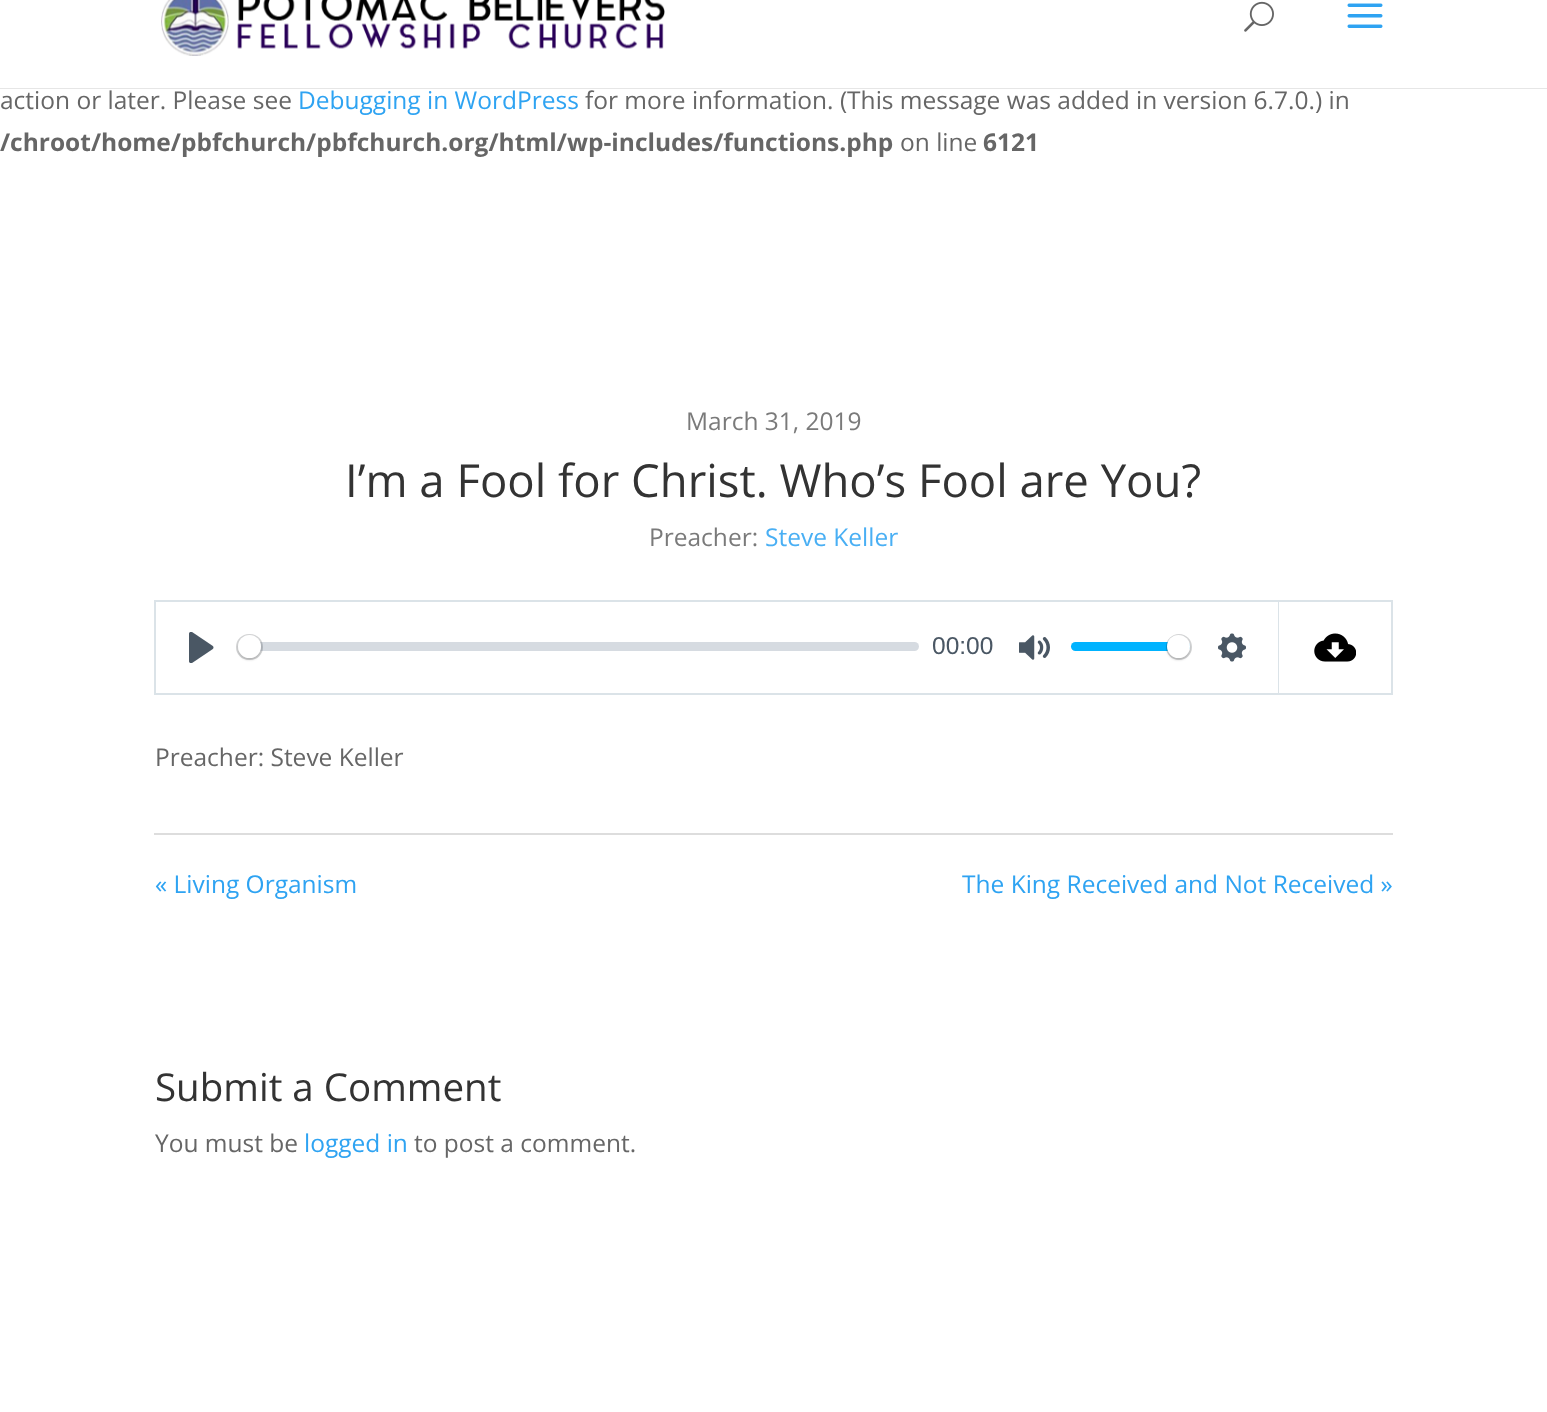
(async () => {
  const canvas = document.querySelector("canvas");
  canvas.width = 1547;
  canvas.height = 1412;
  const ctx = canvas.getContext("2d");
  ctx.miterLimit = 4;
  ctx.fontKerning = "normal";
  async function loadImage(src) {
    const img = new Image();
    img.src = src;
    await img.decode();
    return img;
  }

  ctx.fillStyle = "#ffffff";
  ctx.fillRect(0, 0, 1547, 1412);
  ctx.fillStyle = "#e6e6e6";
  ctx.fillRect(0, 88, 1547, 1);
  ctx.drawImage(await loadImage("img/1.png"), 161, 0, 504, 56);
  ctx.drawImage(await loadImage("img/2.png"), 1244, 1, 30, 31);
  ctx.drawImage(await loadImage("img/3.png"), 1347, 3, 36, 25);
  ctx.strokeStyle = "#dbe3e8";
  ctx.lineWidth = 2;
  ctx.strokeRect(155, 601, 1123, 93);
  ctx.fillStyle = "#ffffff";
  ctx.fillRect(1277, 602, 1, 91);
  ctx.drawImage(await loadImage("img/4.png"), 189, 632, 25, 31);
  ctx.fillStyle = "rgba(193, 201, 209, 0.66)";
  ctx.beginPath();
  ctx.roundRect(238, 642, 681, 9, 4.5);
  ctx.fill();
  ctx.beginPath();
  ctx.roundRect(237, 635, 25, 24, 12);
  ctx.strokeStyle = "rgba(35, 41, 47, 0.2)";
  ctx.stroke();
  ctx.fillStyle = "rgba(0, 0, 0, 0.15)";
  ctx.filter = "blur(1px)";
  ctx.beginPath();
  ctx.roundRect(238, 637, 23, 23, 11.5);
  ctx.fill();
  ctx.filter = "none";
  ctx.fillStyle = "#ffffff";
  ctx.beginPath();
  ctx.arc(249.5, 646.5, 11.5, 0, Math.PI * 2);
  ctx.fill();
  ctx.drawImage(await loadImage("img/5.png"), 1019, 635, 31, 25);
  ctx.fillStyle = "#00b3ff";
  ctx.beginPath();
  ctx.roundRect(1071, 642, 119, 9, 4.5);
  ctx.fill();
  ctx.beginPath();
  ctx.arc(1179, 647, 12, 0, Math.PI * 2);
  ctx.stroke();
  ctx.fillStyle = "rgba(0, 0, 0, 0.15)";
  ctx.filter = "blur(1px)";
  ctx.beginPath();
  ctx.roundRect(1167, 637, 23, 23, 11.5);
  ctx.fill();
  ctx.filter = "none";
  ctx.fillStyle = "#ffffff";
  ctx.beginPath();
  ctx.arc(1178.5, 646.5, 11.5, 0, Math.PI * 2);
  ctx.fill();
  ctx.drawImage(await loadImage("img/6.png"), 1218, 633, 28, 29);
  for (const [x, y, w, h, color] of [
    [1279, 600, 114, 2, "#dbe3e8"],
    [1391, 600, 2, 95, "#dbe3e8"],
    [1279, 693, 114, 2, "#dbe3e8"],
  ]) {
    ctx.fillStyle = color;
    ctx.fillRect(x, y, w, h);
  }
  ctx.drawImage(await loadImage("img/7.png"), 1314, 633, 42, 29);
  ctx.fillStyle = "#dddddd";
  ctx.fillRect(154, 833, 1239, 2);
  ctx.font = "24.5px Open Sans";
  ctx.fillStyle = "#666666";
  ctx.fillText("action or later. Please see", 0, 109);
  ctx.fillStyle = "#2ea3f2";
  ctx.fillText("Debugging in WordPress", 298, 109);
  ctx.fillStyle = "#666666";
  ctx.fillText("for more information. (This message was added in version 6.7.0.) in", 585, 109);
  ctx.font = "bold 24.5px Open Sans";
  ctx.fillText("/chroot/home/pbfchurch/pbfchurch.org/html/wp-includes/functions.php", 0, 151);
  ctx.font = "24.5px Open Sans";
  ctx.fillText("on line", 900, 151);
  ctx.font = "bold 24.5px Open Sans";
  ctx.fillText("6121", 983, 151);
  ctx.font = "24.5px Open Sans";
  ctx.fillStyle = "#7a7a7a";
  ctx.fillText("March 31, 2019", 686, 430);
  ctx.font = "45.5px Open Sans";
  ctx.fillStyle = "#333333";
  ctx.fillText("I’m a Fool for Christ. Who’s Fool are You?", 345, 497);
  ctx.font = "24.5px Open Sans";
  ctx.fillStyle = "#7a7a7a";
  ctx.fillText("Preacher:", 649, 546);
  ctx.fillStyle = "#49aff4";
  ctx.fillText("Steve Keller", 765, 546);
  ctx.font = "24.5px Liberation Sans";
  ctx.fillStyle = "#4a5764";
  ctx.fillText("00:00", 932, 654);
  ctx.font = "24.5px Open Sans";
  ctx.fillStyle = "#666666";
  ctx.fillText("Preacher: Steve Keller", 155, 766);
  ctx.fillStyle = "#2ea3f2";
  ctx.fillText("« Living Organism", 155, 893);
  ctx.fillText("The King Received and Not Received »", 962, 893);
  ctx.font = "38.5px Open Sans";
  ctx.fillStyle = "#333333";
  ctx.fillText("Submit a Comment", 155, 1101);
  ctx.font = "24.5px Open Sans";
  ctx.fillStyle = "#666666";
  ctx.fillText("You must be", 155, 1152);
  ctx.fillStyle = "#2ea3f2";
  ctx.fillText("logged in", 304, 1152);
  ctx.fillStyle = "#666666";
  ctx.fillText("to post a comment.", 414, 1152);
})();
